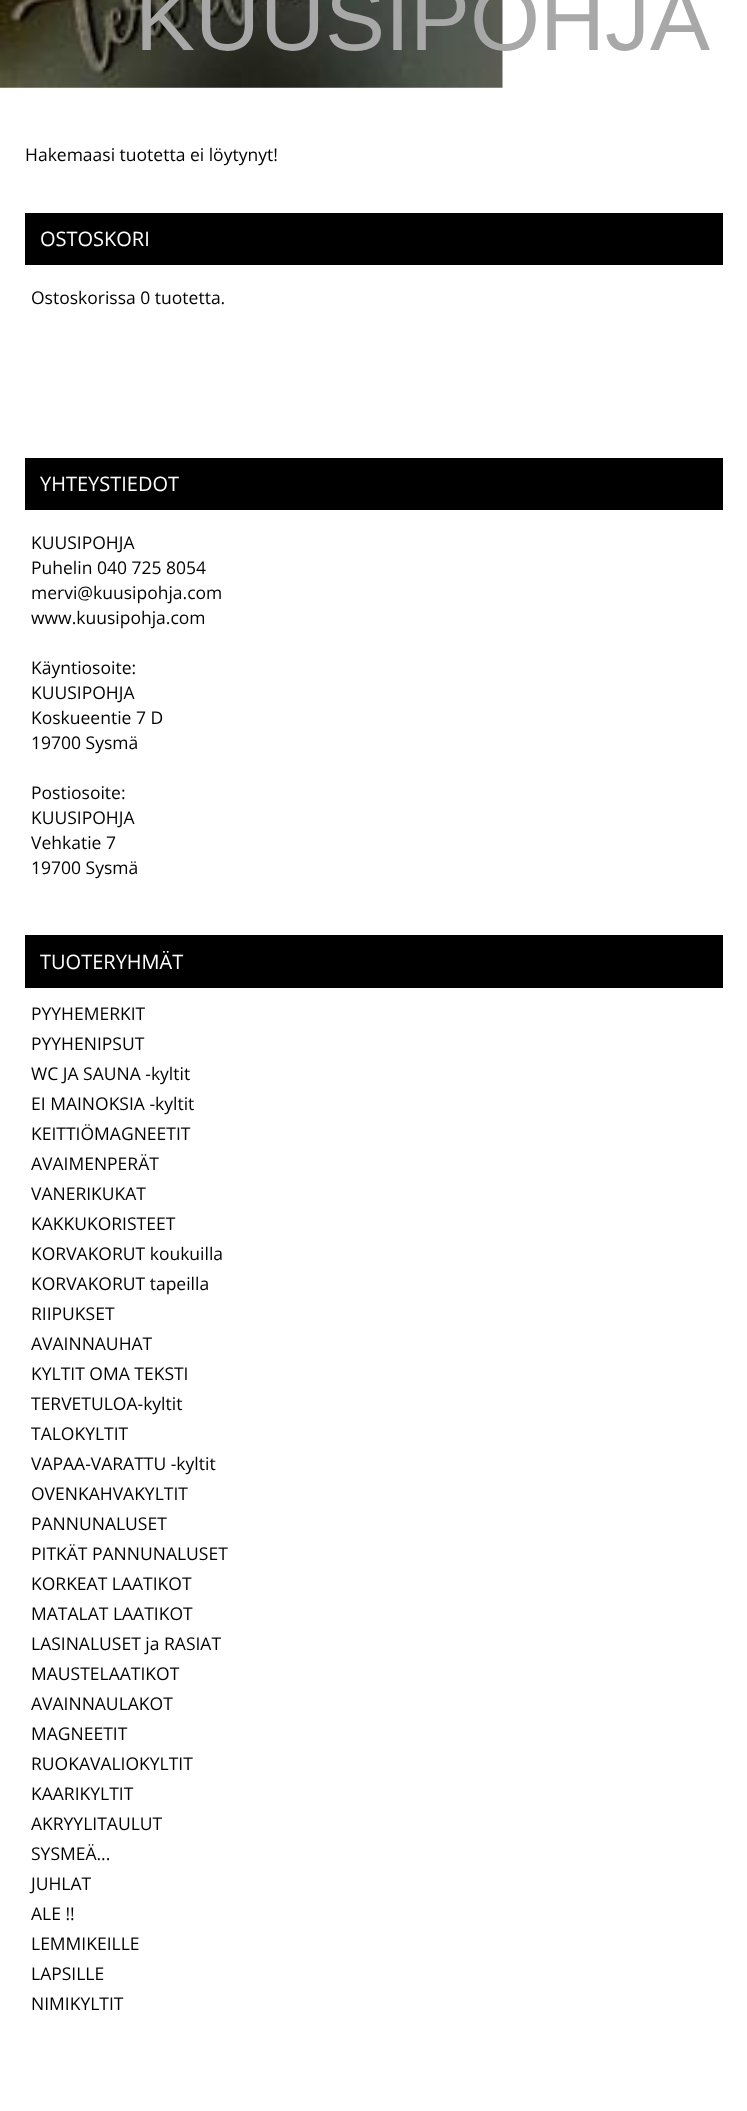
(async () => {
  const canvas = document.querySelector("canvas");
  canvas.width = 747;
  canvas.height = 2111;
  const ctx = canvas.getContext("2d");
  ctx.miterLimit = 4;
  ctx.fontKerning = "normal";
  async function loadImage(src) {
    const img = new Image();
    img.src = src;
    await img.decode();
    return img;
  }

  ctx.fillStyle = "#ffffff";
  ctx.fillRect(0, 0, 747, 2111);
  ctx.drawImage(await loadImage("img/1.png"), 0, 0, 503, 88);
  for (const [x, y, w, h, color] of [
    [25, 213, 698, 52, "#000000"],
    [25, 458, 698, 52, "#000000"],
    [25, 935, 698, 53, "#000000"],
  ]) {
    ctx.fillStyle = color;
    ctx.fillRect(x, y, w, h);
  }
  ctx.font = "90px Liberation Sans";
  ctx.fillStyle = "#a8a8a8";
  ctx.fillText("KUUSIPOHJA", 135, 50);
  ctx.font = "17.5px Open Sans";
  ctx.fillStyle = "#000000";
  ctx.fillText("Hakemaasi tuotetta ei löytynyt!", 25, 161);
  ctx.font = "20px Open Sans";
  ctx.fillStyle = "#ffffff";
  ctx.fillText("OSTOSKORI", 40, 246);
  ctx.font = "17.5px Open Sans";
  ctx.fillStyle = "#000000";
  ctx.fillText("Ostoskorissa 0 tuotetta.", 31, 304);
  ctx.font = "20px Open Sans";
  ctx.fillStyle = "#ffffff";
  ctx.fillText("YHTEYSTIEDOT", 40, 491);
  ctx.font = "17.5px Open Sans";
  ctx.fillStyle = "#000000";
  for (const [text, x, y] of [
    ["KUUSIPOHJA", 31, 549],
    ["Puhelin 040 725 8054", 31, 574],
    ["mervi@kuusipohja.com", 31, 599],
    ["www.kuusipohja.com", 31, 624],
    ["Käyntiosoite:", 31, 674],
    ["KUUSIPOHJA", 31, 699],
    ["Koskueentie 7 D", 31, 724],
    ["19700 Sysmä", 31, 749],
    ["Postiosoite:", 31, 799],
    ["KUUSIPOHJA", 31, 824],
    ["Vehkatie 7", 31, 849],
    ["19700 Sysmä", 31, 874],
  ]) {
    ctx.fillText(text, x, y);
  }
  ctx.font = "20px Open Sans";
  ctx.fillStyle = "#ffffff";
  ctx.fillText("TUOTERYHMÄT", 40, 969);
  ctx.font = "17.5px Open Sans";
  ctx.fillStyle = "#000000";
  for (const [text, x, y] of [
    ["PYYHEMERKIT", 31, 1020],
    ["PYYHENIPSUT", 31, 1050],
    ["WC JA SAUNA -kyltit", 31, 1080],
    ["EI MAINOKSIA -kyltit", 31, 1110],
    ["KEITTIÖMAGNEETIT", 31, 1140],
    ["AVAIMENPERÄT", 31, 1170],
    ["VANERIKUKAT", 31, 1200],
    ["KAKKUKORISTEET", 31, 1230],
    ["KORVAKORUT koukuilla", 31, 1260],
    ["KORVAKORUT tapeilla", 31, 1290],
    ["RIIPUKSET", 31, 1320],
    ["AVAINNAUHAT", 31, 1350],
    ["KYLTIT OMA TEKSTI", 31, 1380],
    ["TERVETULOA-kyltit", 31, 1410],
    ["TALOKYLTIT", 31, 1440],
    ["VAPAA-VARATTU -kyltit", 31, 1470],
    ["OVENKAHVAKYLTIT", 31, 1500],
    ["PANNUNALUSET", 31, 1530],
    ["PITKÄT PANNUNALUSET", 31, 1560],
    ["KORKEAT LAATIKOT", 31, 1590],
    ["MATALAT LAATIKOT", 31, 1620],
    ["LASINALUSET ja RASIAT", 31, 1650],
    ["MAUSTELAATIKOT", 31, 1680],
    ["AVAINNAULAKOT", 31, 1710],
    ["MAGNEETIT", 31, 1740],
    ["RUOKAVALIOKYLTIT", 31, 1770],
    ["KAARIKYLTIT", 31, 1800],
    ["AKRYYLITAULUT", 31, 1830],
    ["SYSMEÄ...", 31, 1860],
    ["JUHLAT", 31, 1890],
    ["ALE !!", 31, 1920],
    ["LEMMIKEILLE", 31, 1950],
    ["LAPSILLE", 31, 1980],
    ["NIMIKYLTIT", 31, 2010],
  ]) {
    ctx.fillText(text, x, y);
  }
})();
